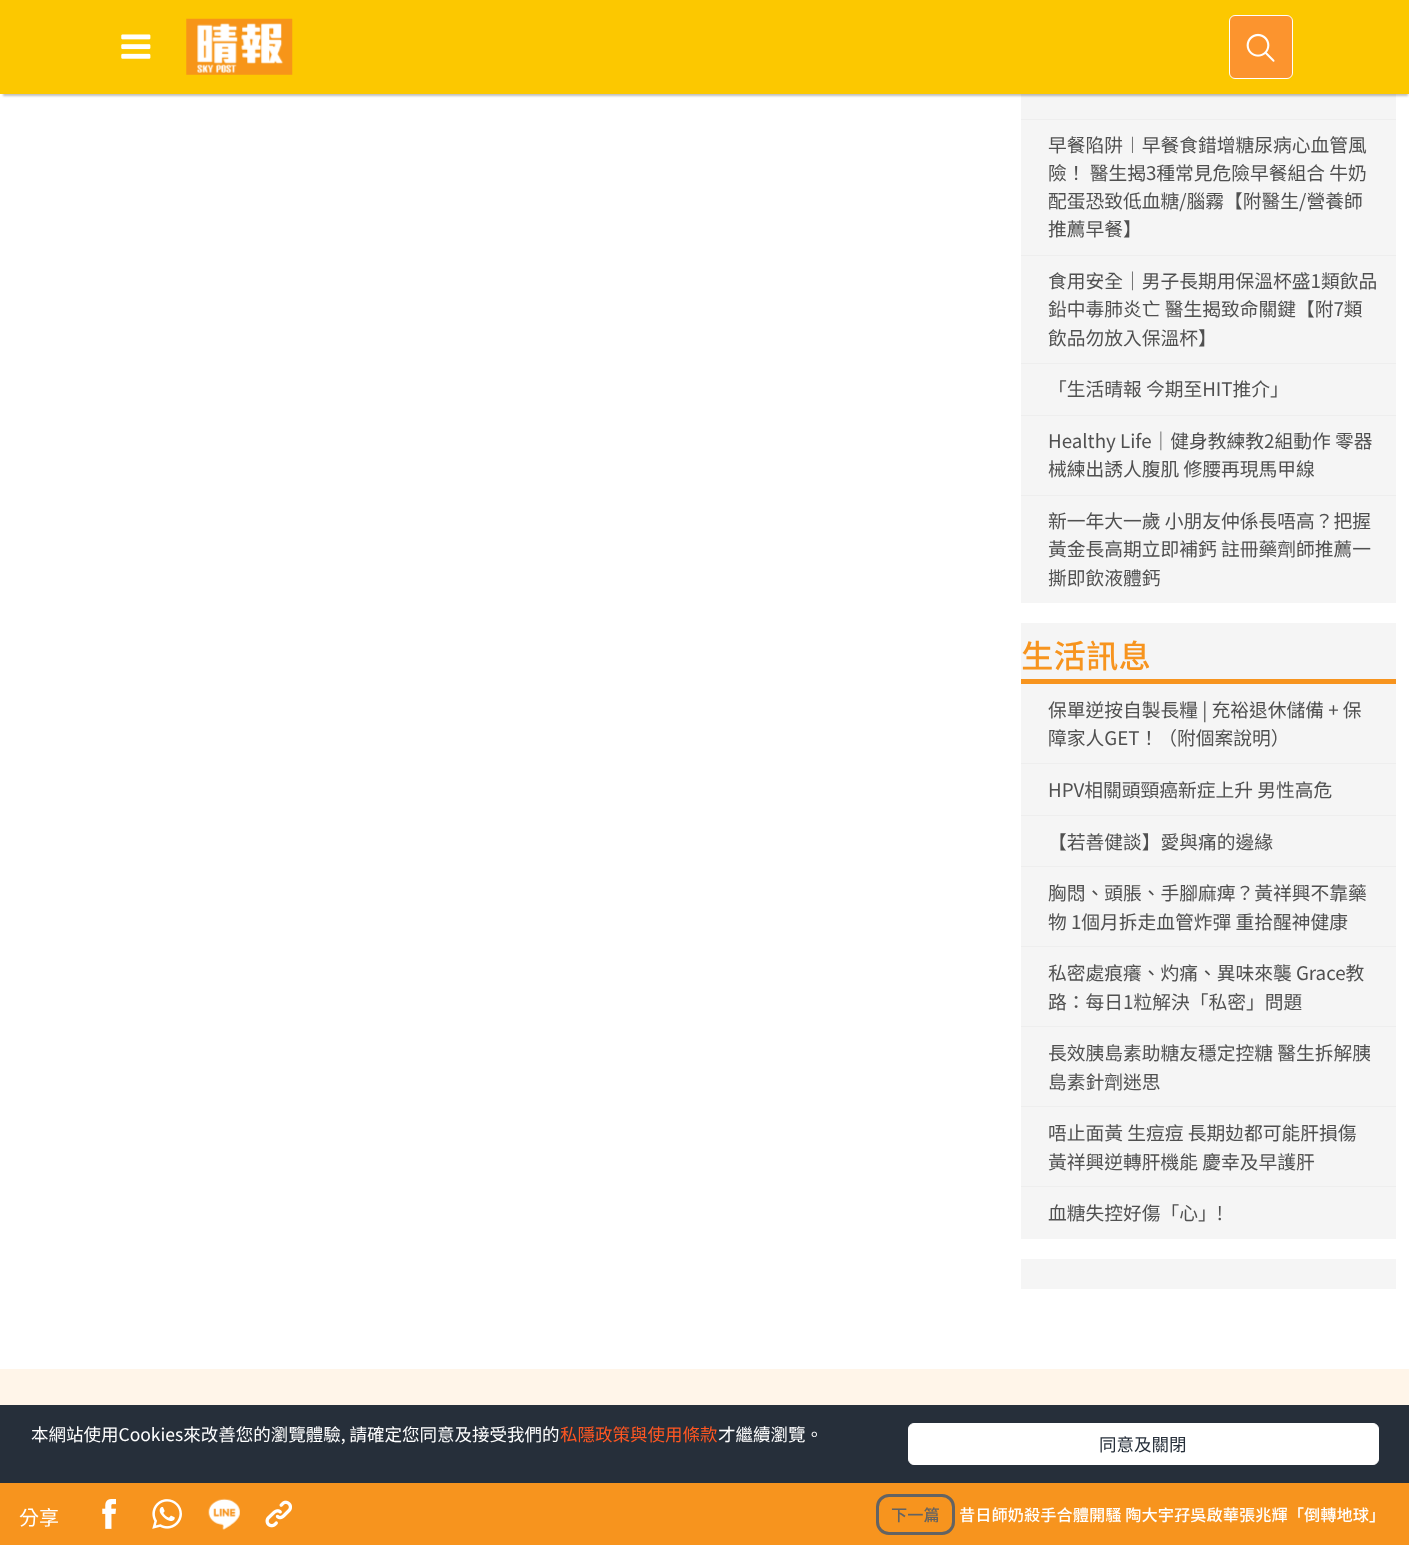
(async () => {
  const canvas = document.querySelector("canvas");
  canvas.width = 1409;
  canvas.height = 1545;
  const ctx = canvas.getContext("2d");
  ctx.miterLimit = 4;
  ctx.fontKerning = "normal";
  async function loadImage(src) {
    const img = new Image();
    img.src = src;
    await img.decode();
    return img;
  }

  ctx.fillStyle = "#ffffff";
  ctx.fillRect(0, 0, 1409, 1545);
  ctx.fillStyle = "#f5f5f5";
  ctx.fillRect(1021, 94, 375, 509);
  ctx.fillStyle = "rgba(0, 0, 0, 0.25)";
  ctx.filter = "blur(1px)";
  ctx.beginPath();
  ctx.rect(3, 8, 1405, 88);
  ctx.fill();
  ctx.filter = "none";
  ctx.fillStyle = "#fcc800";
  ctx.fillRect(0, 0, 1409, 94);
  ctx.drawImage(await loadImage("img/1.png"), 121, 34, 30, 25);
  ctx.drawImage(await loadImage("img/2.png"), 186, 18, 107, 57);
  ctx.fillStyle = "#fc942e";
  ctx.beginPath();
  ctx.roundRect(1229.5, 15.5, 63, 63, 5.5);
  ctx.fill();
  ctx.strokeStyle = "#ffffff";
  ctx.stroke();
  ctx.drawImage(await loadImage("img/3.png"), 1246, 33, 29, 29);
  for (const [x, y, w, h, color] of [
    [1021, 119, 375, 1, "#eeeeee"],
    [1021, 255, 375, 1, "#eeeeee"],
    [1021, 363, 375, 1, "#eeeeee"],
    [1021, 415, 375, 1, "#eeeeee"],
    [1021, 495, 375, 1, "#eeeeee"],
    [1021, 623, 375, 616, "#f5f5f5"],
    [1021, 679, 375, 5, "#f7941e"],
    [1021, 763, 375, 1, "#eeeeee"],
    [1021, 815, 375, 1, "#eeeeee"],
    [1021, 866, 375, 1, "#eeeeee"],
    [1021, 946, 375, 1, "#eeeeee"],
    [1021, 1026, 375, 1, "#eeeeee"],
    [1021, 1106, 375, 1, "#eeeeee"],
    [1021, 1186, 375, 1, "#eeeeee"],
    [1021, 1259, 375, 30, "#f5f5f5"],
    [0, 1369, 1409, 36, "#fff5e9"],
    [0, 1483, 1409, 62, "#f7941e"],
  ]) {
    ctx.fillStyle = color;
    ctx.fillRect(x, y, w, h);
  }
  ctx.drawImage(await loadImage("img/4.png"), 102, 1499, 14, 30);
  ctx.drawImage(await loadImage("img/5.png"), 152, 1499, 30, 30);
  ctx.drawImage(await loadImage("img/6.png"), 208, 1498, 32, 32);
  ctx.drawImage(await loadImage("img/7.png"), 265, 1500, 27, 28);
  ctx.beginPath();
  ctx.roundRect(877.5, 1495.5, 76, 38, 11.5);
  ctx.strokeStyle = "#636363";
  ctx.lineWidth = 3;
  ctx.stroke();
  ctx.fillStyle = "#262f3a";
  ctx.fillRect(0, 1405, 1409, 78);
  ctx.fillStyle = "#ffffff";
  ctx.beginPath();
  ctx.roundRect(908.5, 1423.5, 470, 41, 5.5);
  ctx.fill();
  ctx.strokeStyle = "#ffffff";
  ctx.lineWidth = 1;
  ctx.stroke();
  ctx.font = "100 18.75px Noto Sans TC";
  ctx.fillStyle = "#505050";
  for (const [text, x, y] of [
    ["早餐陷阱︱早餐食錯增糖尿病心血管風", 1048, 152],
    ["險！ 醫生揭3種常見危險早餐組合 牛奶", 1048, 180],
    ["配蛋恐致低血糖/腦霧【附醫生/營養師", 1048, 208],
    ["推薦早餐】", 1048, 236],
    ["食用安全｜男子長期用保溫杯盛1類飲品", 1048, 288],
    ["鉛中毒肺炎亡 醫生揭致命關鍵【附7類", 1048, 316],
    ["飲品勿放入保溫杯】", 1048, 345],
    ["「生活晴報 今期至HIT推介」", 1048, 396],
    ["Healthy Life｜健身教練教2組動作 零器", 1048, 448],
    ["械練出誘人腹肌 修腰再現馬甲線", 1048, 476],
    ["新一年大一歲 小朋友仲係長唔高？把握", 1048, 528],
    ["黃金長高期立即補鈣 註冊藥劑師推薦一", 1048, 556],
    ["撕即飲液體鈣", 1048, 585],
  ]) {
    ctx.fillText(text, x, y);
  }
  ctx.font = "500 32.5px Noto Sans TC";
  ctx.fillStyle = "#f7941e";
  ctx.fillText("生活訊息", 1021, 668);
  ctx.font = "100 18.75px Noto Sans TC";
  ctx.fillStyle = "#505050";
  for (const [text, x, y] of [
    ["保單逆按自製長糧 | 充裕退休儲備 + 保", 1048, 717],
    ["障家人GET！（附個案說明）", 1048, 745],
    ["HPV相關頭頸癌新症上升 男性高危", 1048, 797],
    ["【若善健談】愛與痛的邊緣", 1048, 849],
    ["胸悶、頭脹、手腳麻痺？黃祥興不靠藥", 1048, 900],
    ["物 1個月拆走血管炸彈 重拾醒神健康", 1048, 929],
    ["私密處痕癢、灼痛、異味來襲 Grace教", 1048, 980],
    ["路：每日1粒解決「私密」問題", 1048, 1009],
    ["長效胰島素助糖友穩定控糖 醫生拆解胰", 1048, 1060],
    ["島素針劑迷思", 1048, 1089],
    ["唔止面黃 生痘痘 長期攰都可能肝損傷", 1048, 1140],
    ["黃祥興逆轉肝機能 慶幸及早護肝", 1048, 1169],
    ["血糖失控好傷「心」!", 1048, 1220],
  ]) {
    ctx.fillText(text, x, y);
  }
  ctx.font = "100 20px Noto Sans TC";
  ctx.fillStyle = "#ffffff";
  ctx.fillText("分享", 19, 1525);
  ctx.font = "500 16.25px Noto Sans TC";
  ctx.fillStyle = "#636363";
  ctx.fillText("下一篇", 891, 1521);
  ctx.fillStyle = "#ffffff";
  ctx.fillText("昔日師奶殺手合體開騷 陶大宇孖吳啟華張兆輝「倒轉地球」", 959, 1521);
  ctx.font = "100 17.5px Noto Sans TC";
  ctx.fillText("本網站使用Cookies來改善您的瀏覽體驗, 請確定您同意及接受我們的", 31, 1441);
  ctx.fillStyle = "#ff5722";
  ctx.fillText("私隱政策與使用條款", 560, 1441);
  ctx.fillStyle = "#ffffff";
  ctx.fillText("才繼續瀏覽。", 718, 1441);
  ctx.fillStyle = "#262f3a";
  ctx.fillText("同意及關閉", 1099, 1451);
})();
